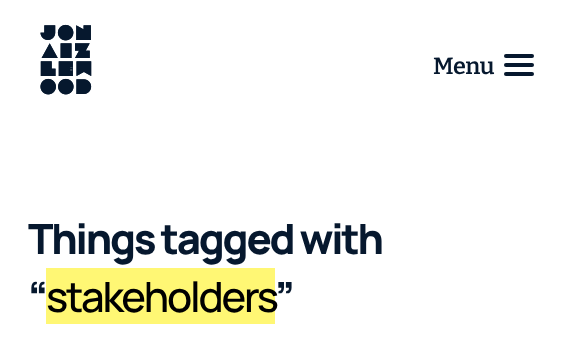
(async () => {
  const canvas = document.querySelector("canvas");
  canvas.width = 562;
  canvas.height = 354;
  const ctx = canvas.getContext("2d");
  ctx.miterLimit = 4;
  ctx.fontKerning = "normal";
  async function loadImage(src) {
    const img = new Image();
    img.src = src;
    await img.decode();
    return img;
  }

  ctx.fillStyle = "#ffffff";
  ctx.fillRect(0, 0, 562, 354);
  ctx.drawImage(await loadImage("img/1.png"), 40, 24, 52, 71);
  ctx.fillStyle = "#06182e";
  ctx.beginPath();
  ctx.roundRect(504, 63, 30, 4, 2);
  ctx.fill();
  ctx.beginPath();
  ctx.roundRect(504, 54, 30, 4, 2);
  ctx.fill();
  ctx.beginPath();
  ctx.roundRect(504, 72, 30, 4, 2);
  ctx.fill();
  ctx.fillStyle = "#fff774";
  ctx.fillRect(46, 268, 229, 56);
  ctx.letterSpacing = "-0.5px";
  ctx.font = "600 23.5px Bitter";
  ctx.fillStyle = "#06182e";
  ctx.fillText("Menu", 433, 74);
  ctx.letterSpacing = "-2.25px";
  ctx.font = "800 41.75px Manrope";
  ctx.fillText("Things tagged with", 28, 254);
  ctx.fillText("“", 28, 312);
  ctx.font = "500 41.75px Manrope";
  ctx.fillStyle = "#000000";
  ctx.fillText("stakeholders", 46, 312);
  ctx.font = "800 41.75px Manrope";
  ctx.fillStyle = "#06182e";
  ctx.fillText("”", 275, 312);
})();
